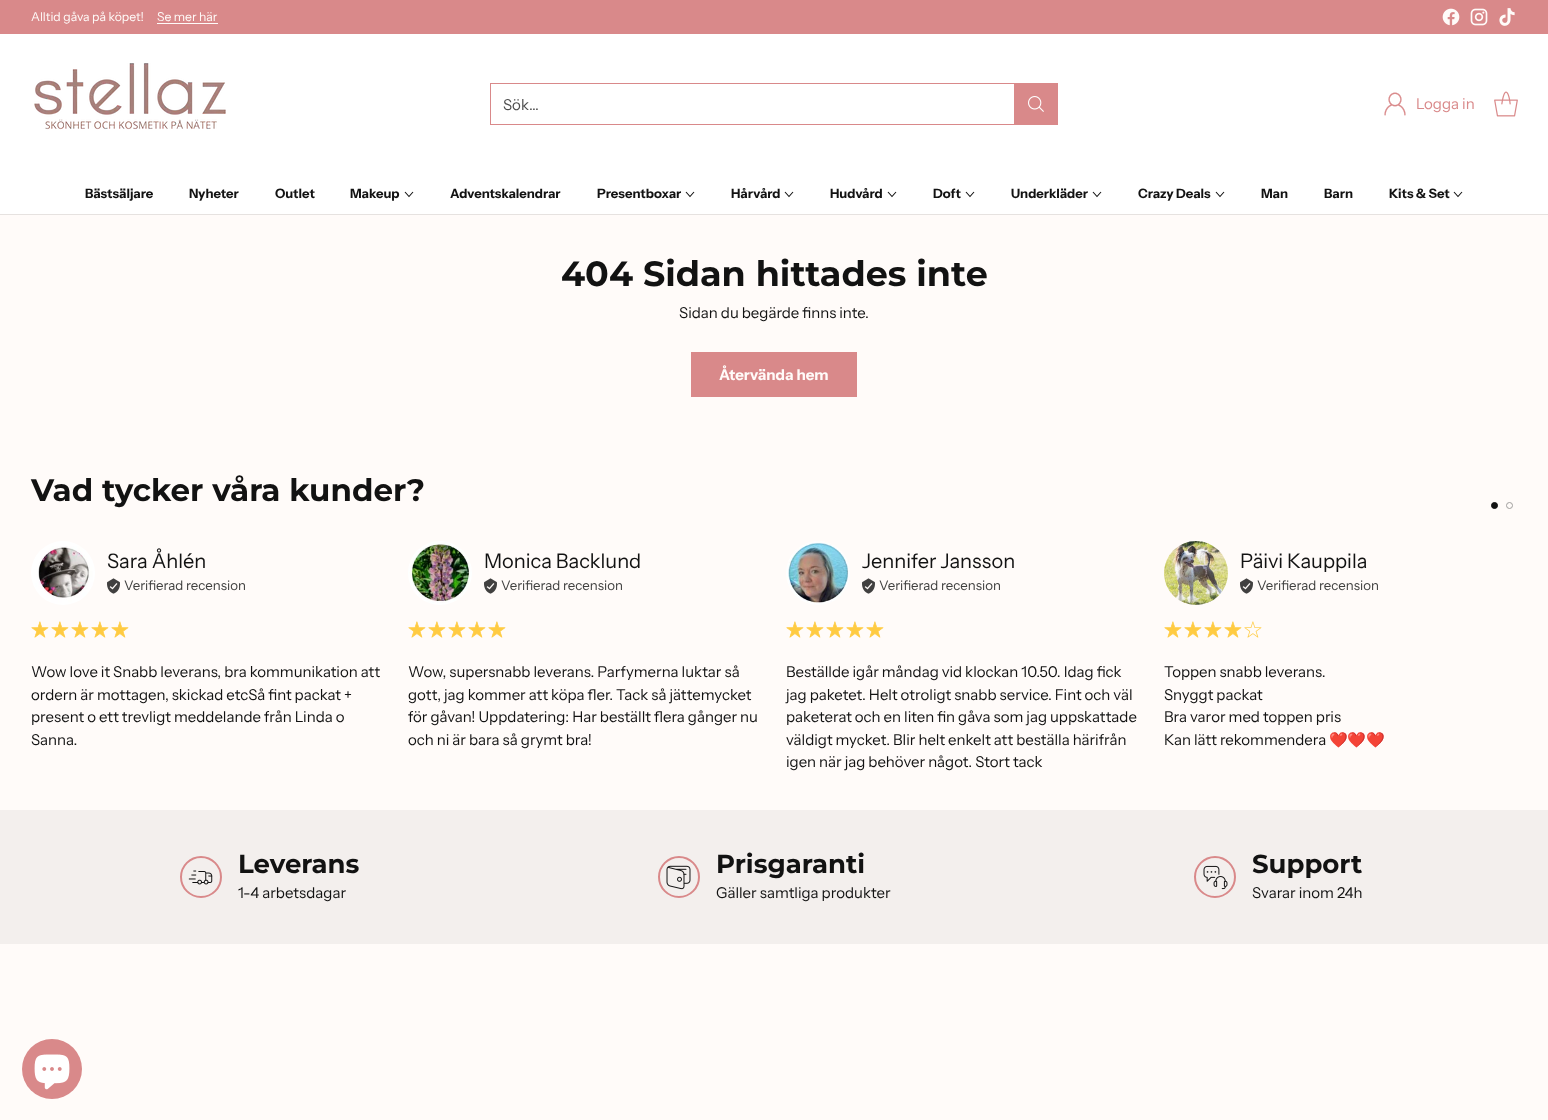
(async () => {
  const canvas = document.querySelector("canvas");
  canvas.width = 1548;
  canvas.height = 1120;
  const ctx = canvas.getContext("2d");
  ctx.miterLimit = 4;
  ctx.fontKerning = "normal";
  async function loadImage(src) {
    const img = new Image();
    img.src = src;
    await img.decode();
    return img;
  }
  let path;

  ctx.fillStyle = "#fffbf9";
  ctx.fillRect(0, 0, 1548, 1120);
  ctx.fillStyle = "#d9898a";
  ctx.fillRect(0, 0, 1548, 34);
  ctx.fillStyle = "#fffbf9";
  ctx.fillRect(157, 23, 61, 1);
  ctx.drawImage(await loadImage("img/1.png"), 1442, 8, 18, 18);
  ctx.drawImage(await loadImage("img/2.png"), 1470, 8, 18, 18);
  ctx.drawImage(await loadImage("img/3.png"), 1499, 8, 16, 18);
  ctx.strokeStyle = "#e6e2e0";
  ctx.strokeRect(-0.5, 173.5, 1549, 41);
  ctx.fillStyle = "#ffffff";
  ctx.fillRect(0, 34, 1548, 180);
  ctx.drawImage(await loadImage("img/4.png"), 34, 63, 192, 67);
  ctx.strokeStyle = "#d9898a";
  ctx.strokeRect(490.5, 83.5, 567, 41);
  ctx.fillStyle = "#d9898a";
  ctx.fillRect(1014, 84, 43, 40);
  ctx.drawImage(await loadImage("img/5.png"), 1028, 96, 16, 16);
  ctx.drawImage(await loadImage("img/6.png"), 1384, 92, 22, 24);
  ctx.drawImage(await loadImage("img/7.png"), 1494, 91, 24, 26);
  path = new Path2D("M405 192L409 196.5L413 192");
  ctx.strokeStyle = "#121212";
  ctx.lineWidth = 1.1;
  ctx.stroke(path);
  path = new Path2D("M686 192L690 196.5L694 192");
  ctx.stroke(path);
  path = new Path2D("M785 192L789 196.5L793 192");
  ctx.stroke(path);
  path = new Path2D("M888 192L892 196.5L896 192");
  ctx.stroke(path);
  path = new Path2D("M966 192L970 196.5L974 192");
  ctx.stroke(path);
  path = new Path2D("M1093 192L1097 196.5L1101 192");
  ctx.stroke(path);
  path = new Path2D("M1216 192L1220 196.5L1224 192");
  ctx.stroke(path);
  path = new Path2D("M1454 192L1458 196.5L1462 192");
  ctx.stroke(path);
  ctx.fillRect(691, 352, 166, 45);
  ctx.fillStyle = "#121212";
  ctx.beginPath();
  ctx.arc(1494.5, 505.5, 3, 0, Math.PI * 2);
  ctx.fill();
  ctx.lineWidth = 1;
  ctx.stroke();
  ctx.beginPath();
  ctx.arc(1509.5, 505.5, 3, 0, Math.PI * 2);
  ctx.strokeStyle = "#a09e9d";
  ctx.stroke();
  ctx.drawImage(await loadImage("img/8.png"), 31, 541, 64, 64);
  ctx.drawImage(await loadImage("img/9.png"), 107, 578, 13, 16);
  ctx.drawImage(await loadImage("img/10.png"), 31, 621, 18, 17);
  ctx.drawImage(await loadImage("img/10.png"), 51, 621, 18, 17);
  ctx.drawImage(await loadImage("img/10.png"), 71, 621, 18, 17);
  ctx.drawImage(await loadImage("img/10.png"), 91, 621, 18, 17);
  ctx.drawImage(await loadImage("img/10.png"), 111, 621, 18, 17);
  ctx.drawImage(await loadImage("img/11.png"), 408, 541, 64, 64);
  ctx.drawImage(await loadImage("img/9.png"), 484, 578, 13, 16);
  ctx.drawImage(await loadImage("img/10.png"), 408, 621, 18, 17);
  ctx.drawImage(await loadImage("img/10.png"), 428, 621, 18, 17);
  ctx.drawImage(await loadImage("img/10.png"), 448, 621, 18, 17);
  ctx.drawImage(await loadImage("img/10.png"), 468, 621, 18, 17);
  ctx.drawImage(await loadImage("img/10.png"), 488, 621, 18, 17);
  ctx.drawImage(await loadImage("img/12.png"), 786, 541, 64, 64);
  ctx.drawImage(await loadImage("img/9.png"), 862, 578, 13, 16);
  ctx.drawImage(await loadImage("img/10.png"), 786, 621, 18, 17);
  ctx.drawImage(await loadImage("img/10.png"), 806, 621, 18, 17);
  ctx.drawImage(await loadImage("img/10.png"), 826, 621, 18, 17);
  ctx.drawImage(await loadImage("img/10.png"), 846, 621, 18, 17);
  ctx.drawImage(await loadImage("img/10.png"), 866, 621, 18, 17);
  ctx.drawImage(await loadImage("img/13.png"), 1164, 541, 64, 64);
  ctx.drawImage(await loadImage("img/9.png"), 1240, 578, 13, 16);
  ctx.drawImage(await loadImage("img/10.png"), 1164, 621, 18, 17);
  ctx.drawImage(await loadImage("img/10.png"), 1184, 621, 18, 17);
  ctx.drawImage(await loadImage("img/10.png"), 1204, 621, 18, 17);
  ctx.drawImage(await loadImage("img/10.png"), 1224, 621, 18, 17);
  ctx.drawImage(await loadImage("img/14.png"), 1244, 621, 18, 17);
  ctx.fillStyle = "#f3efed";
  ctx.fillRect(0, 810, 1548, 134);
  ctx.beginPath();
  ctx.arc(201, 877, 20, 0, Math.PI * 2);
  ctx.strokeStyle = "#d9898a";
  ctx.lineWidth = 2;
  ctx.stroke();
  ctx.drawImage(await loadImage("img/15.png"), 188, 870, 25, 15);
  ctx.beginPath();
  ctx.arc(679, 877, 20, 0, Math.PI * 2);
  ctx.stroke();
  ctx.drawImage(await loadImage("img/16.png"), 666, 865, 25, 25);
  ctx.beginPath();
  ctx.arc(1215, 877, 20, 0, Math.PI * 2);
  ctx.stroke();
  ctx.drawImage(await loadImage("img/17.png"), 1203, 865, 25, 25);
  ctx.fillStyle = "#d9898a";
  ctx.beginPath();
  ctx.arc(52, 1069, 30, 0, Math.PI * 2);
  ctx.fill();
  ctx.drawImage(await loadImage("img/18.png"), 34, 1054, 36, 36);
  ctx.font = "12.25px Instrument Sans";
  ctx.fillStyle = "#fffbf9";
  ctx.fillText("Alltid gåva på köpet!", 31, 21);
  ctx.fillText("Se mer här", 157, 21);
  ctx.font = "15px Instrument Sans";
  ctx.fillStyle = "#4d4d4d";
  ctx.fillText("Sök…", 503, 110);
  ctx.fillStyle = "#d9898a";
  ctx.fillText("Logga in", 1416, 109);
  ctx.font = "bold 13px Instrument Sans";
  ctx.fillStyle = "#121212";
  for (const [text, x, y] of [
    ["Bästsäljare", 85, 198],
    ["Nyheter", 189, 198],
    ["Outlet", 275, 198],
    ["Makeup", 350, 198],
    ["Adventskalendrar", 450, 198],
    ["Presentboxar", 597, 198],
    ["Hårvård", 731, 198],
    ["Hudvård", 830, 198],
    ["Doft", 933, 198],
    ["Underkläder", 1011, 198],
    ["Crazy Deals", 1138, 198],
    ["Man", 1261, 198],
    ["Barn", 1324, 198],
    ["Kits & Set", 1389, 198],
  ]) {
    ctx.fillText(text, x, y);
  }
  ctx.font = "bold 35px Montserrat";
  ctx.fillText("404 Sidan hittades inte", 561, 286);
  ctx.font = "15px Instrument Sans";
  ctx.fillText("Sidan du begärde finns inte.", 679, 318);
  ctx.font = "bold 15px Instrument Sans";
  ctx.fillStyle = "#fffbf9";
  ctx.fillText("Återvända hem", 719, 380);
  ctx.font = "bold 31px Montserrat";
  ctx.fillStyle = "#121212";
  ctx.fillText("Vad tycker våra kunder?", 31, 501);
  ctx.font = "20px Instrument Sans";
  ctx.fillText("Sara Åhlén", 107, 568);
  ctx.font = "13.25px Instrument Sans";
  ctx.fillStyle = "#414140";
  ctx.fillText("Verifierad recension", 124, 590);
  ctx.font = "15px Instrument Sans";
  ctx.fillStyle = "#121212";
  for (const [text, x, y] of [
    ["Wow love it Snabb leverans, bra kommunikation att", 31, 677],
    ["ordern är mottagen, skickad etcSå fint packat +", 31, 700],
    ["present o ett trevligt meddelande från Linda o", 31, 722],
    ["Sanna.", 31, 745],
  ]) {
    ctx.fillText(text, x, y);
  }
  ctx.font = "20px Instrument Sans";
  ctx.fillText("Monica Backlund", 484, 568);
  ctx.font = "13.25px Instrument Sans";
  ctx.fillStyle = "#414140";
  ctx.fillText("Verifierad recension", 501, 590);
  ctx.font = "15px Instrument Sans";
  ctx.fillStyle = "#121212";
  for (const [text, x, y] of [
    ["Wow, supersnabb leverans. Parfymerna luktar så", 408, 677],
    ["gott, jag kommer att köpa fler. Tack så jättemycket", 408, 700],
    ["för gåvan! Uppdatering: Har beställt flera gånger nu", 408, 722],
    ["och ni är bara så grymt bra!", 408, 745],
  ]) {
    ctx.fillText(text, x, y);
  }
  ctx.font = "20px Instrument Sans";
  ctx.fillText("Jennifer Jansson", 862, 568);
  ctx.font = "13.25px Instrument Sans";
  ctx.fillStyle = "#414140";
  ctx.fillText("Verifierad recension", 879, 590);
  ctx.font = "15px Instrument Sans";
  ctx.fillStyle = "#121212";
  for (const [text, x, y] of [
    ["Beställde igår måndag vid klockan 10.50. Idag fick", 786, 677],
    ["jag paketet. Helt otroligt snabb service. Fint och väl", 786, 700],
    ["paketerat och en liten fin gåva som jag uppskattade", 786, 722],
    ["väldigt mycket. Blir helt enkelt att beställa härifrån", 786, 745],
    ["igen när jag behöver något. Stort tack", 786, 767],
  ]) {
    ctx.fillText(text, x, y);
  }
  ctx.font = "20px Instrument Sans";
  ctx.fillText("Päivi Kauppila", 1240, 568);
  ctx.font = "13.25px Instrument Sans";
  ctx.fillStyle = "#414140";
  ctx.fillText("Verifierad recension", 1257, 590);
  ctx.font = "15px Instrument Sans";
  ctx.fillStyle = "#121212";
  for (const [text, x, y] of [
    ["Toppen snabb leverans.", 1164, 677],
    ["Snyggt packat", 1164, 700],
    ["Bra varor med toppen pris", 1164, 722],
    ["Kan lätt rekommendera", 1164, 745],
  ]) {
    ctx.fillText(text, x, y);
  }
  ctx.font = "15px Noto Color Emoji";
  ctx.fillText("❤️❤️❤️", 1329, 745);
  ctx.font = "bold 26px Montserrat";
  ctx.fillText("Leverans", 238, 873);
  ctx.font = "15px Instrument Sans";
  ctx.fillText("1-4 arbetsdagar", 238, 898);
  ctx.font = "bold 26px Montserrat";
  ctx.fillText("Prisgaranti", 716, 873);
  ctx.font = "15px Instrument Sans";
  ctx.fillText("Gäller samtliga produkter", 716, 898);
  ctx.font = "bold 26px Montserrat";
  ctx.fillText("Support", 1252, 873);
  ctx.font = "15px Instrument Sans";
  ctx.fillText("Svarar inom 24h", 1252, 898);
})();
